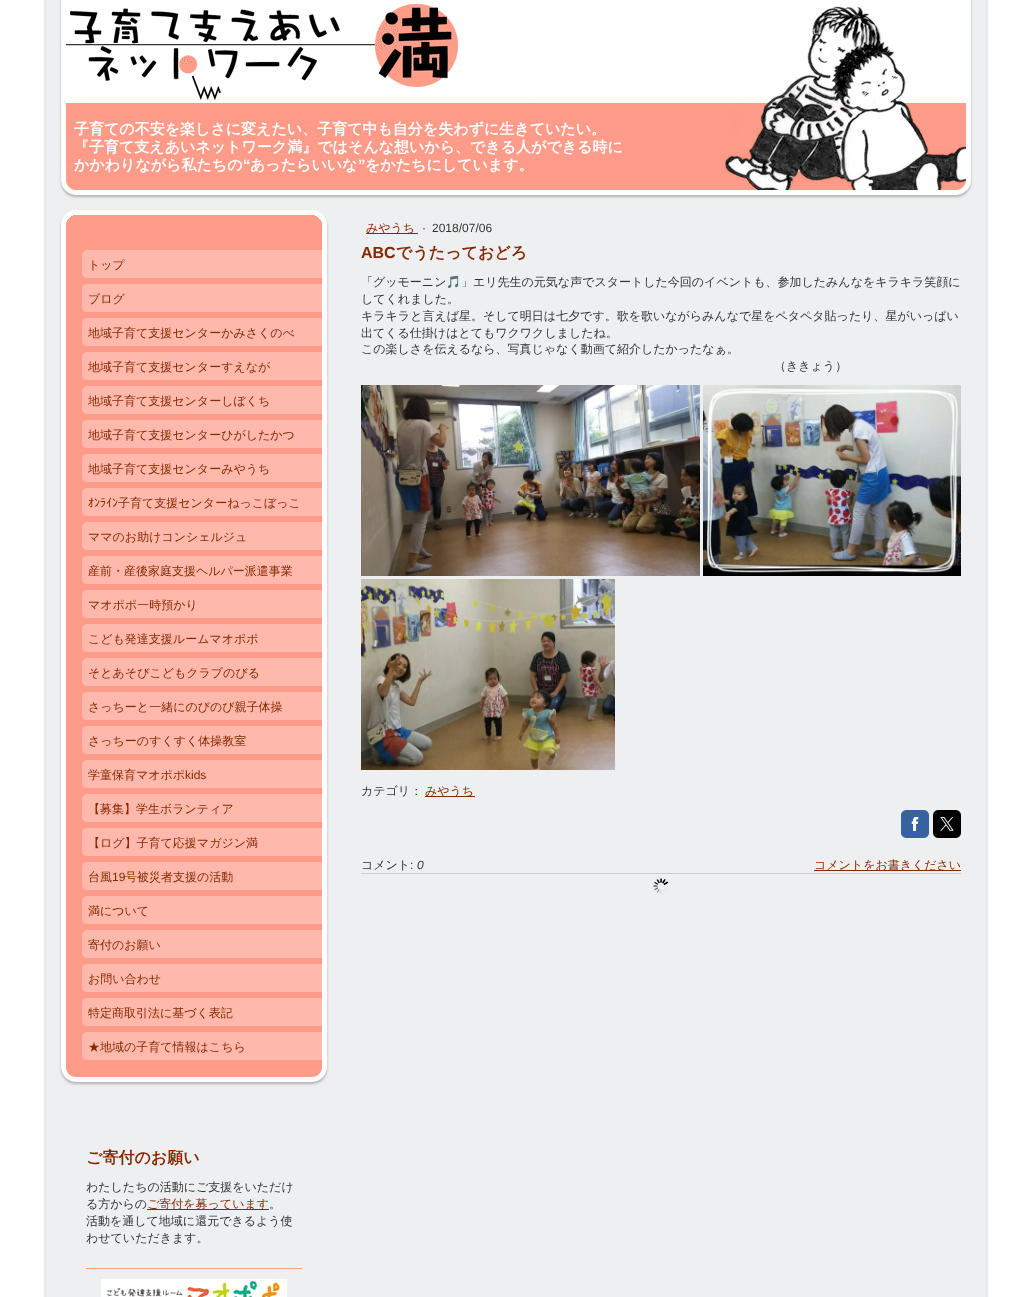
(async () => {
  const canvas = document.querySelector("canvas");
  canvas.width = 1032;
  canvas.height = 1297;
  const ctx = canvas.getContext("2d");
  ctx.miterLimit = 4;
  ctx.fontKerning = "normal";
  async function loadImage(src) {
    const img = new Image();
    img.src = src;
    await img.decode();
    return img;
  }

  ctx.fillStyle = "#ffffff";
  ctx.fillRect(0, 0, 1032, 1297);
  ctx.drawImage(await loadImage("img/1.png"), 43, 0, 946, 1297);
  ctx.drawImage(await loadImage("img/5.png"), 61, 0, 905, 195);
  ctx.drawImage(await loadImage("img/2.png"), 46, 0, 20, 25);
  ctx.fillStyle = "#ff9b88";
  ctx.fillRect(61, 215, 266, 867);
  ctx.drawImage(await loadImage("img/7.png"), 59, 210, 270, 40);
  ctx.drawImage(await loadImage("img/8.png"), 59, 1066, 270, 20);
  ctx.drawImage(await loadImage("img/9.png"), 59, 250, 270, 816);
  ctx.drawImage(await loadImage("img/10.png"), 82, 250, 240, 28);
  ctx.drawImage(await loadImage("img/10.png"), 82, 284, 240, 28);
  ctx.drawImage(await loadImage("img/10.png"), 82, 318, 240, 28);
  ctx.drawImage(await loadImage("img/10.png"), 82, 352, 240, 28);
  ctx.drawImage(await loadImage("img/10.png"), 82, 386, 240, 28);
  ctx.drawImage(await loadImage("img/10.png"), 82, 420, 240, 28);
  ctx.drawImage(await loadImage("img/10.png"), 82, 454, 240, 28);
  ctx.drawImage(await loadImage("img/10.png"), 82, 488, 240, 28);
  ctx.drawImage(await loadImage("img/10.png"), 82, 522, 240, 28);
  ctx.drawImage(await loadImage("img/10.png"), 82, 556, 240, 28);
  ctx.drawImage(await loadImage("img/10.png"), 82, 590, 240, 28);
  ctx.drawImage(await loadImage("img/10.png"), 82, 624, 240, 28);
  ctx.drawImage(await loadImage("img/10.png"), 82, 658, 240, 28);
  ctx.drawImage(await loadImage("img/10.png"), 82, 692, 240, 28);
  ctx.drawImage(await loadImage("img/10.png"), 82, 726, 240, 28);
  ctx.drawImage(await loadImage("img/10.png"), 82, 760, 240, 28);
  ctx.drawImage(await loadImage("img/10.png"), 82, 794, 240, 28);
  ctx.drawImage(await loadImage("img/10.png"), 82, 828, 240, 28);
  ctx.drawImage(await loadImage("img/10.png"), 82, 862, 240, 28);
  ctx.drawImage(await loadImage("img/10.png"), 82, 896, 240, 28);
  ctx.drawImage(await loadImage("img/10.png"), 82, 930, 240, 28);
  ctx.drawImage(await loadImage("img/10.png"), 82, 964, 240, 28);
  ctx.drawImage(await loadImage("img/10.png"), 82, 998, 240, 28);
  ctx.drawImage(await loadImage("img/10.png"), 82, 1032, 240, 28);
  ctx.fillStyle = "#842900";
  ctx.fillRect(147, 1209, 122, 1);
  ctx.fillStyle = "#ff9b88";
  ctx.fillRect(86, 1268, 216, 1);
  ctx.drawImage(await loadImage("img/11.png"), 101, 1279, 186, 18);
  ctx.fillStyle = "#842900";
  ctx.fillRect(366, 233, 52, 1);
  ctx.drawImage(await loadImage("img/12.png"), 361, 385, 339, 191);
  ctx.drawImage(await loadImage("img/13.png"), 703, 385, 258, 191);
  ctx.drawImage(await loadImage("img/14.png"), 361, 579, 254, 191);
  ctx.fillRect(425, 796, 50, 1);
  ctx.drawImage(await loadImage("img/15.png"), 901, 810, 28, 28);
  ctx.drawImage(await loadImage("img/16.png"), 911, 817, 8, 14);
  ctx.drawImage(await loadImage("img/17.png"), 933, 810, 28, 28);
  ctx.drawImage(await loadImage("img/18.png"), 940, 817, 14, 14);
  ctx.fillRect(814, 870, 147, 1);
  ctx.drawImage(await loadImage("img/19.png"), 653, 878, 16, 16);
  ctx.fillStyle = "#cccccc";
  ctx.fillRect(361, 873, 600, 1);
  ctx.font = "bold 15px WenQuanYi Zen Hei";
  ctx.fillStyle = "#ffffff";
  for (const [text, x, y] of [
    ["子育ての不安を楽しさに変えたい、子育て中も自分を失わずに生きていたい。", 74, 134],
    ["『子育て支えあいネットワーク満』ではそんな想いから、できる人ができる時に", 74, 152],
    ["かかわりながら私たちの", 74, 170],
  ]) {
    ctx.fillText(text, x, y);
  }
  ctx.font = "bold 15px Liberation Sans";
  ctx.fillText("“", 243, 170);
  ctx.font = "bold 15px WenQuanYi Zen Hei";
  ctx.fillText("あったらいいな", 250, 170);
  ctx.font = "bold 15px Liberation Sans";
  ctx.fillText("”", 358, 170);
  ctx.font = "bold 15px WenQuanYi Zen Hei";
  ctx.fillText("をかたちにしています。", 365, 170);
  ctx.drawImage(await loadImage("img/6.png"), 46, 163, 940, 47);
  ctx.drawImage(await loadImage("img/3.png"), 966, 0, 20, 191);
  ctx.drawImage(await loadImage("img/4.png"), 46, 25, 20, 166);
  ctx.font = "500 12px WenQuanYi Zen Hei";
  ctx.fillStyle = "#842900";
  for (const [text, x, y] of [
    ["トップ", 88, 269],
    ["ブログ", 88, 303],
    ["地域子育て支援センターかみさくのべ", 88, 337],
    ["地域子育て支援センターすえなが", 88, 371],
    ["地域子育て支援センターしぼくち", 88, 405],
    ["地域子育て支援センターひがしたかつ", 88, 439],
    ["地域子育て支援センターみやうち", 88, 473],
  ]) {
    ctx.fillText(text, x, y);
  }
  ctx.font = "12px IPAPGothic";
  ctx.fillText("ｵﾝﾗｲﾝ", 88, 507);
  ctx.font = "500 12px WenQuanYi Zen Hei";
  for (const [text, x, y] of [
    ["子育て支援センターねっこぼっこ", 118, 507],
    ["ママのお助けコンシェルジュ", 88, 541],
    ["産前・産後家庭支援ヘルパー派遣事業", 88, 575],
    ["マオポポ一時預かり", 88, 609],
    ["こども発達支援ルームマオポポ", 88, 643],
    ["そとあそびこどもクラブのびる", 88, 677],
    ["さっちーと一緒にのびのび親子体操", 88, 711],
    ["さっちーのすくすく体操教室", 88, 745],
    ["学童保育マオポポ", 88, 779],
  ]) {
    ctx.fillText(text, x, y);
  }
  ctx.font = "12px Liberation Sans";
  ctx.fillText("kids", 185, 779);
  ctx.font = "500 12px WenQuanYi Zen Hei";
  for (const [text, x, y] of [
    ["【募集】学生ボランティア", 88, 813],
    ["【ログ】子育て応援マガジン満", 88, 847],
    ["台風", 88, 881],
  ]) {
    ctx.fillText(text, x, y);
  }
  ctx.font = "12px Liberation Sans";
  ctx.fillText("19", 112, 881);
  ctx.font = "500 12px WenQuanYi Zen Hei";
  for (const [text, x, y] of [
    ["号被災者支援の活動", 125, 881],
    ["満について", 88, 915],
    ["寄付のお願い", 88, 949],
    ["お問い合わせ", 88, 983],
    ["特定商取引法に基づく表記", 88, 1017],
    ["★地域の子育て情報はこちら", 88, 1051],
  ]) {
    ctx.fillText(text, x, y);
  }
  ctx.font = "bold 16px WenQuanYi Zen Hei";
  ctx.fillText("ご寄付のお願い", 86, 1163);
  ctx.font = "500 12px WenQuanYi Zen Hei";
  ctx.fillStyle = "#333333";
  ctx.fillText("わたしたちの活動にご支援をいただけ", 86, 1191);
  ctx.fillText("る方からの", 86, 1208);
  ctx.fillStyle = "#842900";
  ctx.fillText("ご寄付を募っています", 147, 1208);
  ctx.fillStyle = "#333333";
  for (const [text, x, y] of [
    ["。", 269, 1208],
    ["活動を通して地域に還元できるよう使", 86, 1225],
    ["わせていただきます。", 86, 1242],
  ]) {
    ctx.fillText(text, x, y);
  }
  ctx.fillStyle = "#842900";
  ctx.fillText("みやうち", 366, 232);
  ctx.font = "12px Liberation Sans";
  ctx.fillStyle = "#333333";
  ctx.fillText("·", 422, 232);
  ctx.fillText("2018/07/06", 432, 232);
  ctx.font = "bold 16px Liberation Sans";
  ctx.fillStyle = "#842900";
  ctx.fillText("ABC", 361, 258);
  ctx.font = "bold 16px WenQuanYi Zen Hei";
  ctx.fillText("でうたっておどろ", 396, 258);
  ctx.font = "500 12px WenQuanYi Zen Hei";
  ctx.fillStyle = "#333333";
  ctx.fillText("「グッモーニン", 361, 286);
  ctx.font = "12px Noto Color Emoji";
  ctx.fillText("🎵", 446, 286);
  ctx.font = "500 12px WenQuanYi Zen Hei";
  for (const [text, x, y] of [
    ["」エリ先生の元気な声でスタートした今回のイベントも、参加したみんなをキラキラ笑顔に", 461, 286],
    ["してくれました。", 361, 303],
    ["キラキラと言えば星。そして明日は七夕です。歌を歌いながらみんなで星をペタペタ貼ったり、星がいっぱい", 361, 320],
    ["出てくる仕掛けはとてもワクワクしましたね。", 361, 337],
    ["この楽しさを伝えるなら、写真じゃなく動画て紹介したかったなぁ。", 361, 353],
    ["（ききょう）", 774, 370],
    ["カテゴリ：", 361, 795],
  ]) {
    ctx.fillText(text, x, y);
  }
  ctx.fillStyle = "#842900";
  ctx.fillText("みやうち", 425, 795);
  ctx.fillStyle = "#333333";
  ctx.fillText("コメント", 361, 869);
  ctx.font = "12px Liberation Sans";
  ctx.fillText(":", 410, 869);
  ctx.font = "italic 12px Liberation Sans";
  ctx.fillText("0", 417, 869);
  ctx.font = "500 12px WenQuanYi Zen Hei";
  ctx.fillStyle = "#842900";
  ctx.fillText("コメントをお書きください", 814, 869);
})();
